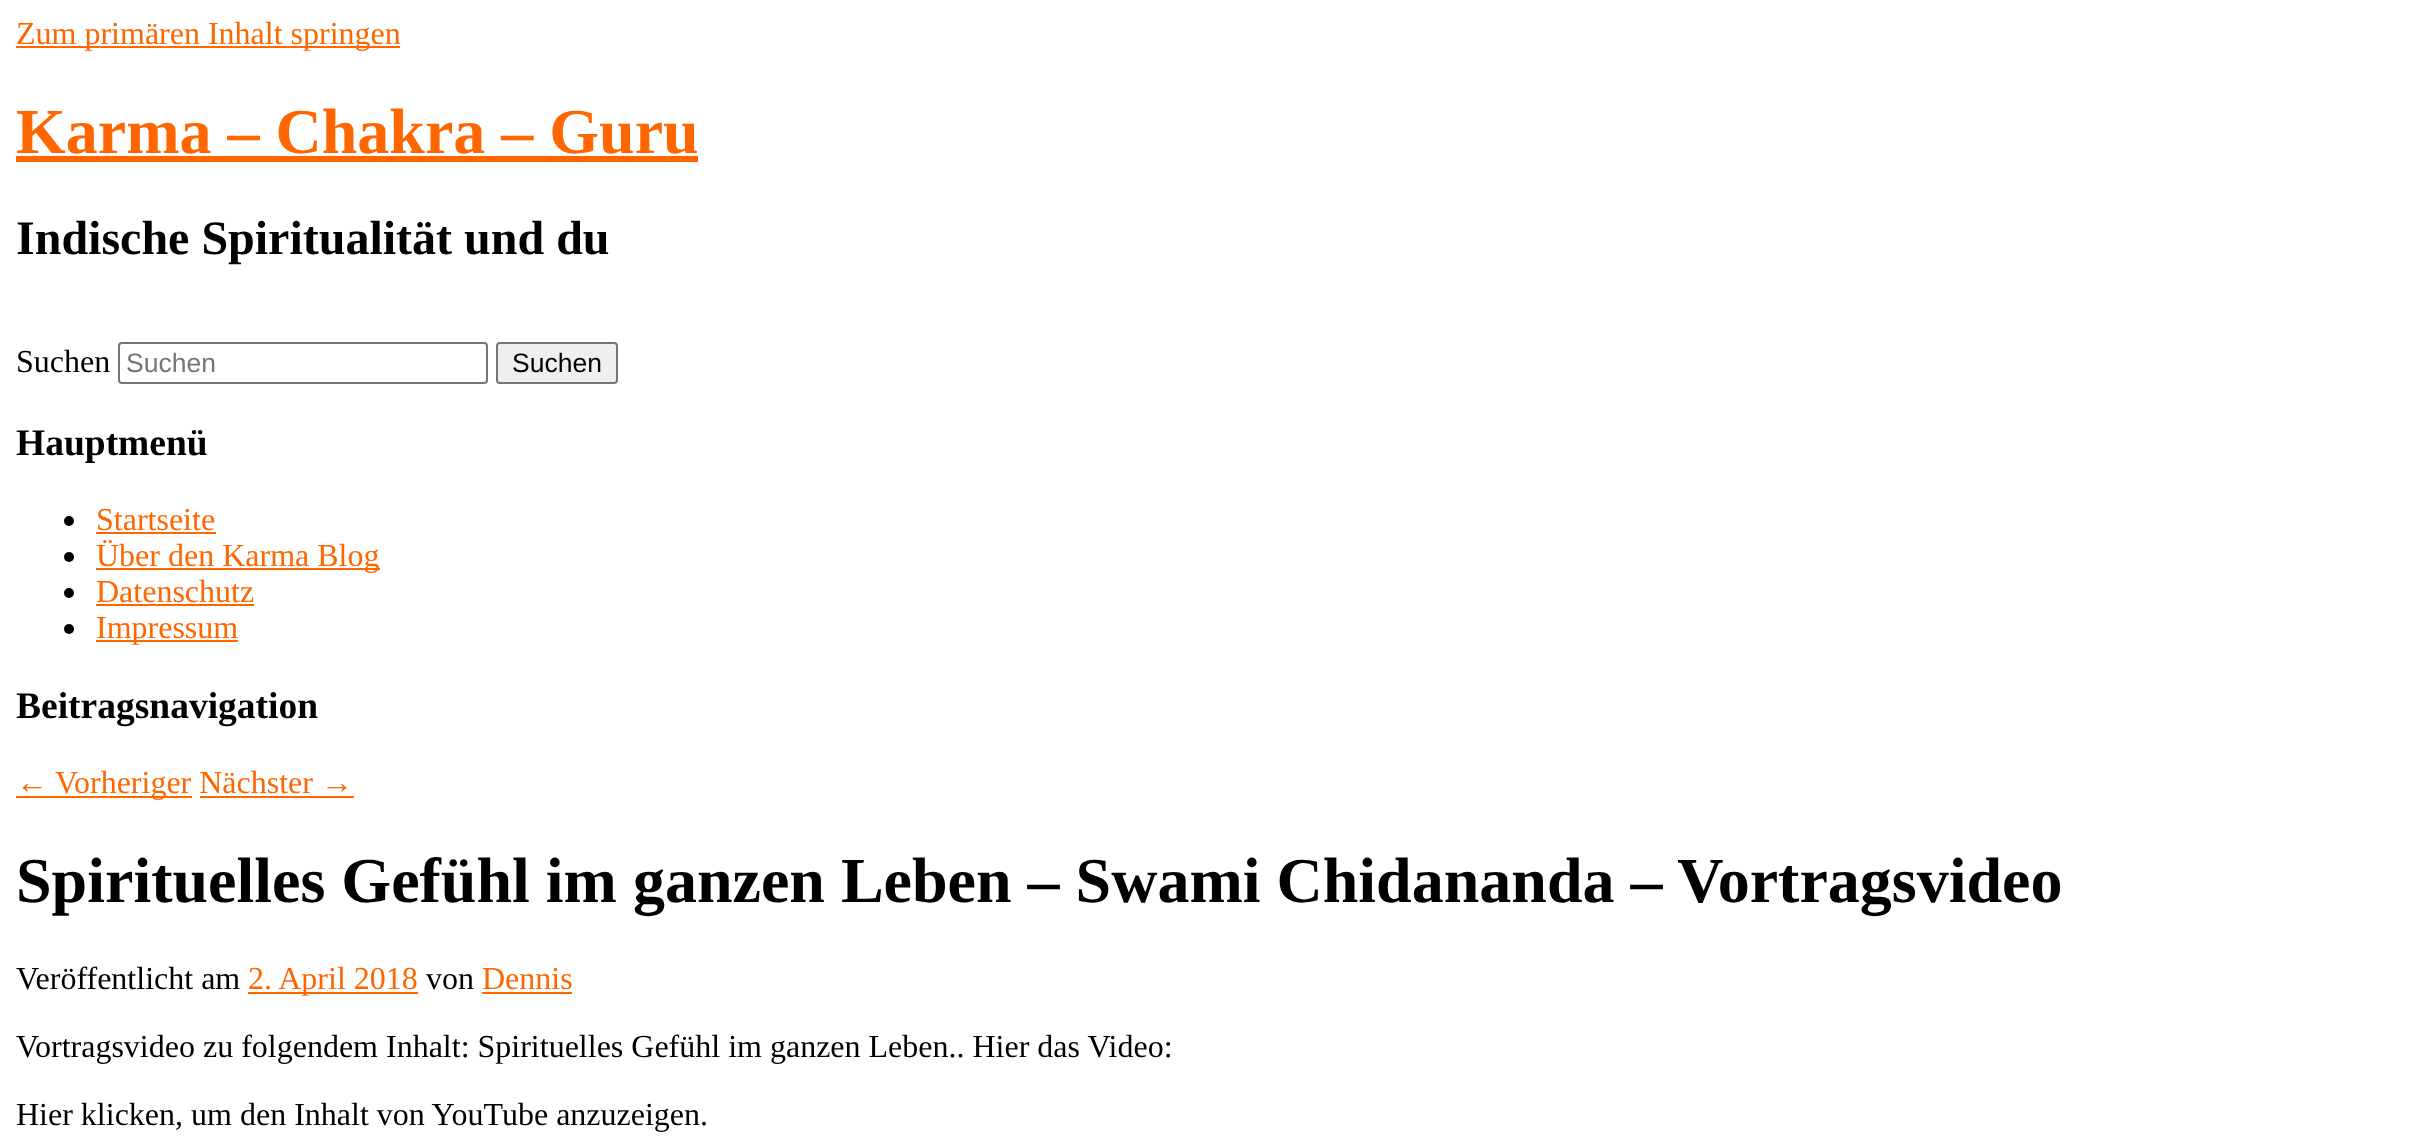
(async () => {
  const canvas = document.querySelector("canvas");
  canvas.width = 2411;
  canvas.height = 1145;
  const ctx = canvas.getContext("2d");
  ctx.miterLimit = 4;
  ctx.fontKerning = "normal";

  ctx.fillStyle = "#ffffff";
  ctx.fillRect(0, 0, 2411, 1145);
  ctx.fillStyle = "#ff6600";
  ctx.fillRect(16, 46, 384, 2);
  ctx.fillRect(16, 156, 682, 6);
  ctx.beginPath();
  ctx.roundRect(119, 343, 368, 40, 3);
  ctx.strokeStyle = "#767676";
  ctx.lineWidth = 2;
  ctx.stroke();
  ctx.fillStyle = "#efefef";
  ctx.beginPath();
  ctx.roundRect(497, 343, 120, 40, 3);
  ctx.fill();
  ctx.stroke();
  ctx.fillStyle = "#000000";
  ctx.beginPath();
  ctx.arc(69, 521, 5, 0, Math.PI * 2);
  ctx.fill();
  ctx.fillStyle = "#ff6600";
  ctx.fillRect(96, 532, 120, 2);
  ctx.fillStyle = "#000000";
  ctx.beginPath();
  ctx.arc(69, 557, 5, 0, Math.PI * 2);
  ctx.fill();
  ctx.fillStyle = "#ff6600";
  ctx.fillRect(96, 568, 284, 2);
  ctx.fillStyle = "#000000";
  ctx.beginPath();
  ctx.arc(69, 593, 5, 0, Math.PI * 2);
  ctx.fill();
  ctx.fillStyle = "#ff6600";
  ctx.fillRect(96, 604, 158, 2);
  ctx.fillStyle = "#000000";
  ctx.beginPath();
  ctx.arc(69, 629, 5, 0, Math.PI * 2);
  ctx.fill();
  for (const [x, y, w, h, color] of [
    [96, 640, 142, 2, "#ff6600"],
    [16, 796, 176, 2, "#ff6600"],
    [200, 796, 154, 2, "#ff6600"],
    [248, 992, 170, 2, "#ff6600"],
    [482, 992, 90, 2, "#ff6600"],
  ]) {
    ctx.fillStyle = color;
    ctx.fillRect(x, y, w, h);
  }
  ctx.font = "32px Liberation Serif";
  ctx.fillText("Zum primären Inhalt springen", 16, 44);
  ctx.font = "bold 64px Liberation Serif";
  ctx.fillText("Karma – Chakra – Guru", 16, 153);
  ctx.font = "bold 48px Liberation Serif";
  ctx.fillStyle = "#000000";
  ctx.fillText("Indische Spiritualität und du", 16, 254);
  ctx.font = "32px Liberation Serif";
  ctx.fillText("Suchen", 16, 372);
  ctx.font = "26.5px Liberation Sans";
  ctx.fillStyle = "#757575";
  ctx.fillText("Suchen", 126, 372);
  ctx.fillStyle = "#000000";
  ctx.fillText("Suchen", 512, 372);
  ctx.font = "bold 37.5px Liberation Serif";
  ctx.fillText("Hauptmenü", 16, 455);
  ctx.font = "32px Liberation Serif";
  ctx.fillStyle = "#ff6600";
  for (const [text, x, y] of [
    ["Startseite", 96, 530],
    ["Über den Karma Blog", 96, 566],
    ["Datenschutz", 96, 602],
    ["Impressum", 96, 638],
  ]) {
    ctx.fillText(text, x, y);
  }
  ctx.font = "bold 37.5px Liberation Serif";
  ctx.fillStyle = "#000000";
  ctx.fillText("Beitragsnavigation", 16, 718);
  ctx.font = "32px Liberation Serif";
  ctx.fillStyle = "#ff6600";
  ctx.fillText("←", 16, 793);
  ctx.fillText("Vorheriger Nächster →", 55, 793);
  ctx.font = "bold 64px Liberation Serif";
  ctx.fillStyle = "#000000";
  ctx.fillText("Spirituelles Gefühl im ganzen Leben – Swami Chidananda – Vortragsvideo", 16, 902);
  ctx.font = "32px Liberation Serif";
  ctx.fillText("Veröffentlicht am", 16, 989);
  ctx.fillStyle = "#ff6600";
  ctx.fillText("2. April 2018", 248, 989);
  ctx.fillStyle = "#000000";
  ctx.fillText("von", 426, 989);
  ctx.fillStyle = "#ff6600";
  ctx.fillText("Dennis", 482, 989);
  ctx.fillStyle = "#000000";
  ctx.fillText("Vortragsvideo zu folgendem Inhalt: Spirituelles Gefühl im ganzen Leben.. Hier das Video:", 16, 1057);
  ctx.fillText("Hier klicken, um den Inhalt von YouTube anzuzeigen.", 16, 1125);
})();
